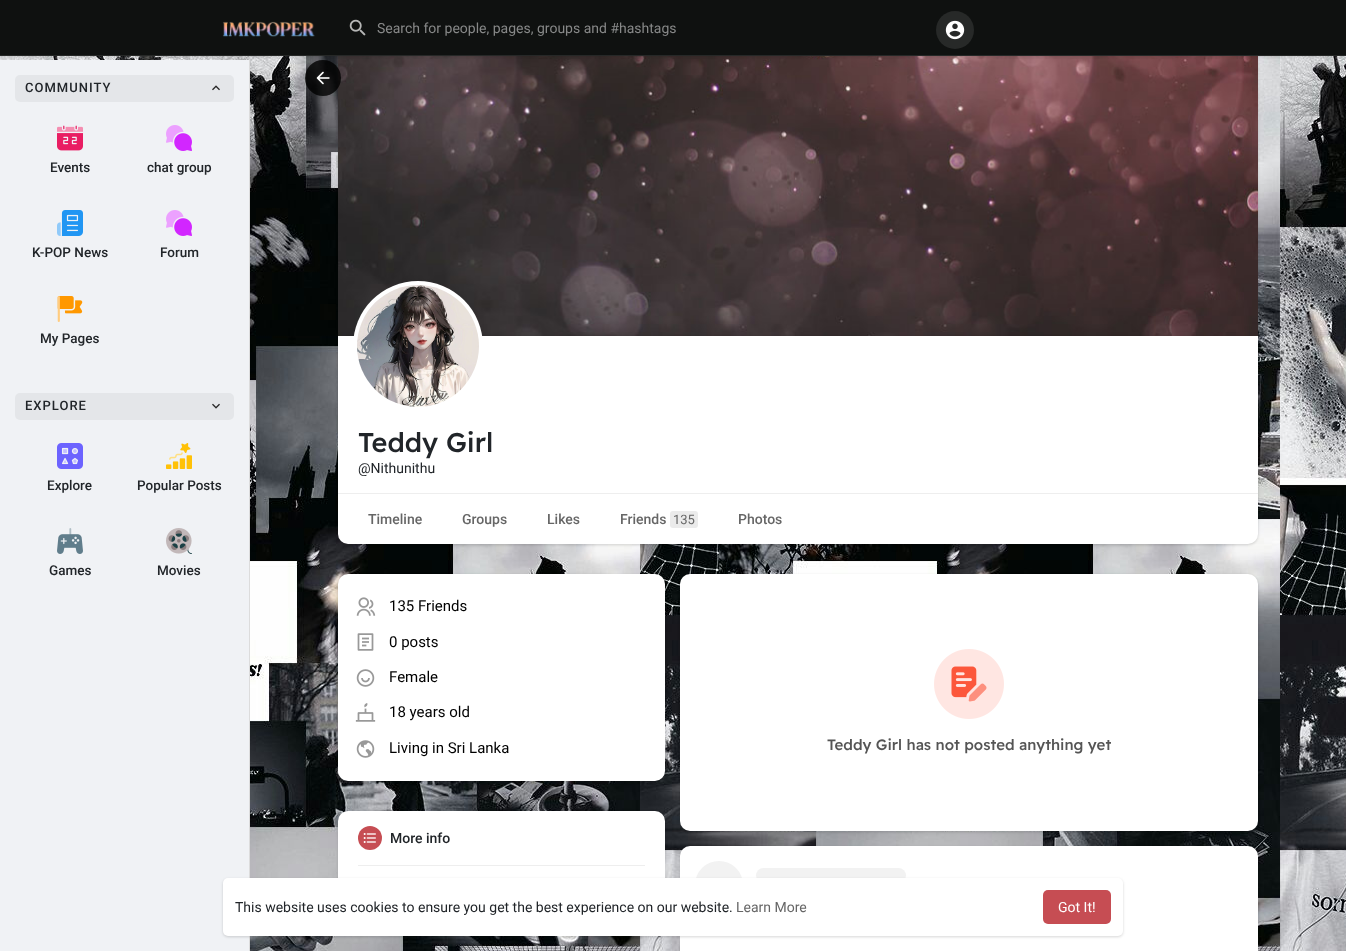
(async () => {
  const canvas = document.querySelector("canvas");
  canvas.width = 1346;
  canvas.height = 951;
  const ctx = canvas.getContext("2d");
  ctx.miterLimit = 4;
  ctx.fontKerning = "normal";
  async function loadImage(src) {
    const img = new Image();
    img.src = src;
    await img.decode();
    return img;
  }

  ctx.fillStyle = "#ffffff";
  ctx.fillRect(0, 0, 1346, 951);
  ctx.drawImage(await loadImage("img/1.png"), 0, 56, 1346, 895);
  ctx.fillStyle = "rgba(0, 0, 0, 0.1)";
  ctx.filter = "blur(1.5px)";
  ctx.beginPath();
  ctx.roundRect(338, 36, 920, 301, 10);
  ctx.fill();
  ctx.filter = "none";
  ctx.fillStyle = "#0f1110";
  ctx.fillRect(0, 0, 1346, 56);
  ctx.drawImage(await loadImage("img/2.png"), 222, 21, 93, 16);
  ctx.drawImage(await loadImage("img/3.png"), 349, 19, 17, 17);
  ctx.drawImage(await loadImage("img/17.png"), 338, 56, 920, 280);
  ctx.drawImage(await loadImage("img/4.png"), 0, 55, 1346, 4);
  ctx.fillStyle = "#272928";
  ctx.beginPath();
  ctx.arc(955, 30, 19, 0, Math.PI * 2);
  ctx.fill();
  ctx.drawImage(await loadImage("img/5.png"), 945, 20, 20, 20);
  ctx.fillStyle = "#f0f2f5";
  ctx.fillRect(0, 60, 249, 891);
  ctx.fillStyle = "#dcdcdc";
  ctx.fillRect(249, 60, 1, 891);
  ctx.fillStyle = "#e4e6e9";
  ctx.beginPath();
  ctx.roundRect(15, 75, 219, 27, 5);
  ctx.fill();
  ctx.drawImage(await loadImage("img/6.png"), 212, 85, 8, 6);
  ctx.drawImage(await loadImage("img/7.png"), 57, 125, 26, 26);
  ctx.drawImage(await loadImage("img/8.png"), 166, 125, 26, 26);
  ctx.drawImage(await loadImage("img/9.png"), 57, 210, 26, 26);
  ctx.drawImage(await loadImage("img/8.png"), 166, 210, 26, 26);
  ctx.drawImage(await loadImage("img/10.png"), 57, 296, 26, 26);
  ctx.beginPath();
  ctx.roundRect(15, 393, 219, 27, 5);
  ctx.fill();
  ctx.drawImage(await loadImage("img/11.png"), 212, 403, 8, 6);
  ctx.drawImage(await loadImage("img/12.png"), 57, 443, 26, 26);
  ctx.drawImage(await loadImage("img/13.png"), 166, 443, 26, 26);
  ctx.drawImage(await loadImage("img/14.png"), 57, 528, 26, 26);
  ctx.drawImage(await loadImage("img/15.png"), 166, 528, 26, 26);
  ctx.fillStyle = "rgba(0, 0, 0, 0.8)";
  ctx.beginPath();
  ctx.arc(323, 78, 18, 0, Math.PI * 2);
  ctx.fill();
  ctx.drawImage(await loadImage("img/16.png"), 316, 71, 14, 14);
  ctx.fillStyle = "rgba(0, 0, 0, 0.06)";
  ctx.filter = "blur(1px)";
  ctx.beginPath();
  ctx.roundRect(338, 337, 920, 208, 10);
  ctx.fill();
  ctx.filter = "none";
  ctx.fillStyle = "rgba(0, 0, 0, 0.1)";
  ctx.filter = "blur(1.5px)";
  ctx.beginPath();
  ctx.roundRect(338, 337, 920, 208, 10);
  ctx.fill();
  ctx.filter = "none";
  ctx.fillStyle = "#ffffff";
  ctx.beginPath();
  ctx.roundRect(338, 336, 920, 208, [0, 0, 10, 10]);
  ctx.fill();
  ctx.beginPath();
  ctx.arc(418, 346, 65, 0, Math.PI * 2);
  ctx.fill();
  ctx.drawImage(await loadImage("img/18.png"), 357, 285, 122, 122);
  ctx.fillStyle = "#eeeeee";
  ctx.fillRect(338, 493, 920, 1);
  ctx.fillStyle = "#ebebeb";
  ctx.beginPath();
  ctx.roundRect(670, 511, 28, 17, 3);
  ctx.fill();
  ctx.fillStyle = "rgba(0, 0, 0, 0.06)";
  ctx.filter = "blur(1px)";
  ctx.beginPath();
  ctx.roundRect(338, 575, 327, 207, 10);
  ctx.fill();
  ctx.filter = "none";
  ctx.fillStyle = "rgba(0, 0, 0, 0.1)";
  ctx.filter = "blur(1.5px)";
  ctx.beginPath();
  ctx.roundRect(338, 575, 327, 207, 10);
  ctx.fill();
  ctx.filter = "none";
  ctx.fillStyle = "#ffffff";
  ctx.beginPath();
  ctx.roundRect(338, 574, 327, 207, 10);
  ctx.fill();
  ctx.drawImage(await loadImage("img/19.png"), 356, 597, 20, 19);
  ctx.drawImage(await loadImage("img/20.png"), 357, 633, 17, 18);
  ctx.drawImage(await loadImage("img/21.png"), 356, 669, 19, 18);
  ctx.drawImage(await loadImage("img/22.png"), 355, 703, 21, 19);
  ctx.drawImage(await loadImage("img/23.png"), 356, 740, 19, 18);
  ctx.fillStyle = "rgba(0, 0, 0, 0.1)";
  ctx.filter = "blur(1.5px)";
  ctx.beginPath();
  ctx.roundRect(338, 812, 327, 100, 10);
  ctx.fill();
  ctx.filter = "none";
  ctx.fillStyle = "#ffffff";
  ctx.beginPath();
  ctx.roundRect(338, 811, 327, 100, 10);
  ctx.fill();
  ctx.fillStyle = "#eeeeee";
  ctx.fillRect(358, 865, 287, 1);
  ctx.fillStyle = "#c64d53";
  ctx.beginPath();
  ctx.arc(370, 838, 12, 0, Math.PI * 2);
  ctx.fill();
  ctx.drawImage(await loadImage("img/24.png"), 363, 833, 13, 10);
  ctx.fillStyle = "rgba(0, 0, 0, 0.06)";
  ctx.filter = "blur(1px)";
  ctx.beginPath();
  ctx.roundRect(680, 575, 578, 257, 10);
  ctx.fill();
  ctx.filter = "none";
  ctx.fillStyle = "rgba(0, 0, 0, 0.1)";
  ctx.filter = "blur(1.5px)";
  ctx.beginPath();
  ctx.roundRect(680, 575, 578, 257, 10);
  ctx.fill();
  ctx.filter = "none";
  ctx.fillStyle = "#ffffff";
  ctx.beginPath();
  ctx.roundRect(680, 574, 578, 257, 10);
  ctx.fill();
  ctx.drawImage(await loadImage("img/25.png"), 934, 649, 70, 70);
  ctx.fillStyle = "rgba(0, 0, 0, 0.1)";
  ctx.filter = "blur(1.5px)";
  ctx.beginPath();
  ctx.roundRect(680, 847, 578, 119, 10);
  ctx.fill();
  ctx.filter = "none";
  ctx.fillStyle = "#ffffff";
  ctx.beginPath();
  ctx.roundRect(680, 846, 578, 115, 10);
  ctx.fill();
  ctx.fillStyle = "#f2f2f2";
  ctx.beginPath();
  ctx.arc(719, 885, 24, 0, Math.PI * 2);
  ctx.fill();
  ctx.beginPath();
  ctx.roundRect(756, 868, 150, 15, 7.5);
  ctx.fill();
  ctx.fillStyle = "rgba(0, 0, 0, 0.06)";
  ctx.filter = "blur(1px)";
  ctx.beginPath();
  ctx.roundRect(223, 879, 900, 58, 5);
  ctx.fill();
  ctx.filter = "none";
  ctx.fillStyle = "rgba(0, 0, 0, 0.1)";
  ctx.filter = "blur(1.5px)";
  ctx.beginPath();
  ctx.roundRect(223, 879, 900, 58, 5);
  ctx.fill();
  ctx.filter = "none";
  ctx.fillStyle = "#ffffff";
  ctx.beginPath();
  ctx.roundRect(223, 878, 900, 58, 5);
  ctx.fill();
  ctx.fillStyle = "#c64d53";
  ctx.beginPath();
  ctx.roundRect(1043, 890, 68, 34, 5);
  ctx.fill();
  ctx.font = "14px Roboto";
  ctx.fillStyle = "#878888";
  ctx.fillText("Search for people, pages, groups and #hashtags", 377, 33);
  ctx.letterSpacing = "1px";
  ctx.font = "500 13px Roboto";
  ctx.fillStyle = "#212529";
  ctx.fillText("COMMUNITY", 25, 92);
  ctx.letterSpacing = "0px";
  ctx.font = "500 13.5px Roboto";
  for (const [text, x, y] of [
    ["Events", 50, 172],
    ["chat group", 147, 172],
    ["K-POP News", 32, 257],
    ["Forum", 160, 257],
    ["My Pages", 40, 343],
  ]) {
    ctx.fillText(text, x, y);
  }
  ctx.letterSpacing = "1px";
  ctx.font = "500 13px Roboto";
  ctx.fillText("EXPLORE", 25, 410);
  ctx.letterSpacing = "0px";
  ctx.font = "500 13.5px Roboto";
  for (const [text, x, y] of [
    ["Explore", 47, 490],
    ["Popular Posts", 137, 490],
    ["Games", 49, 575],
    ["Movies", 157, 575],
  ]) {
    ctx.fillText(text, x, y);
  }
  ctx.font = "500 27px Readex Pro";
  ctx.fillText("Teddy Girl", 358, 452);
  ctx.font = "14px Roboto";
  ctx.fillText("@Nithunithu", 358, 473);
  ctx.font = "500 14px Roboto";
  ctx.fillStyle = "#666666";
  for (const [text, x, y] of [
    ["Timeline", 368, 524],
    ["Groups", 462, 524],
    ["Likes", 547, 524],
    ["Friends", 620, 524],
  ]) {
    ctx.fillText(text, x, y);
  }
  ctx.font = "13px Roboto";
  ctx.fillText("135", 673, 524);
  ctx.font = "500 14px Roboto";
  ctx.fillText("Photos", 738, 524);
  ctx.font = "15px Roboto";
  ctx.fillStyle = "#000000";
  for (const [text, x, y] of [
    ["135 Friends", 389, 611],
    ["0 posts", 389, 647],
    ["Female", 389, 682],
    ["18 years old", 389, 717],
    ["Living in Sri Lanka", 389, 753],
  ]) {
    ctx.fillText(text, x, y);
  }
  ctx.font = "500 14px Roboto";
  ctx.fillStyle = "#212529";
  ctx.fillText("More info", 390, 843);
  ctx.font = "500 15px Readex Pro";
  ctx.fillStyle = "#555555";
  ctx.fillText("Teddy Girl has not posted anything yet", 827, 750);
  ctx.font = "14px Roboto";
  ctx.fillStyle = "#212529";
  ctx.fillText("This website uses cookies to ensure you get the best experience on our website.", 235, 912);
  ctx.fillStyle = "#666666";
  ctx.fillText("Learn More", 736, 912);
  ctx.fillStyle = "#ffffff";
  ctx.fillText("Got It!", 1058, 912);
})();
